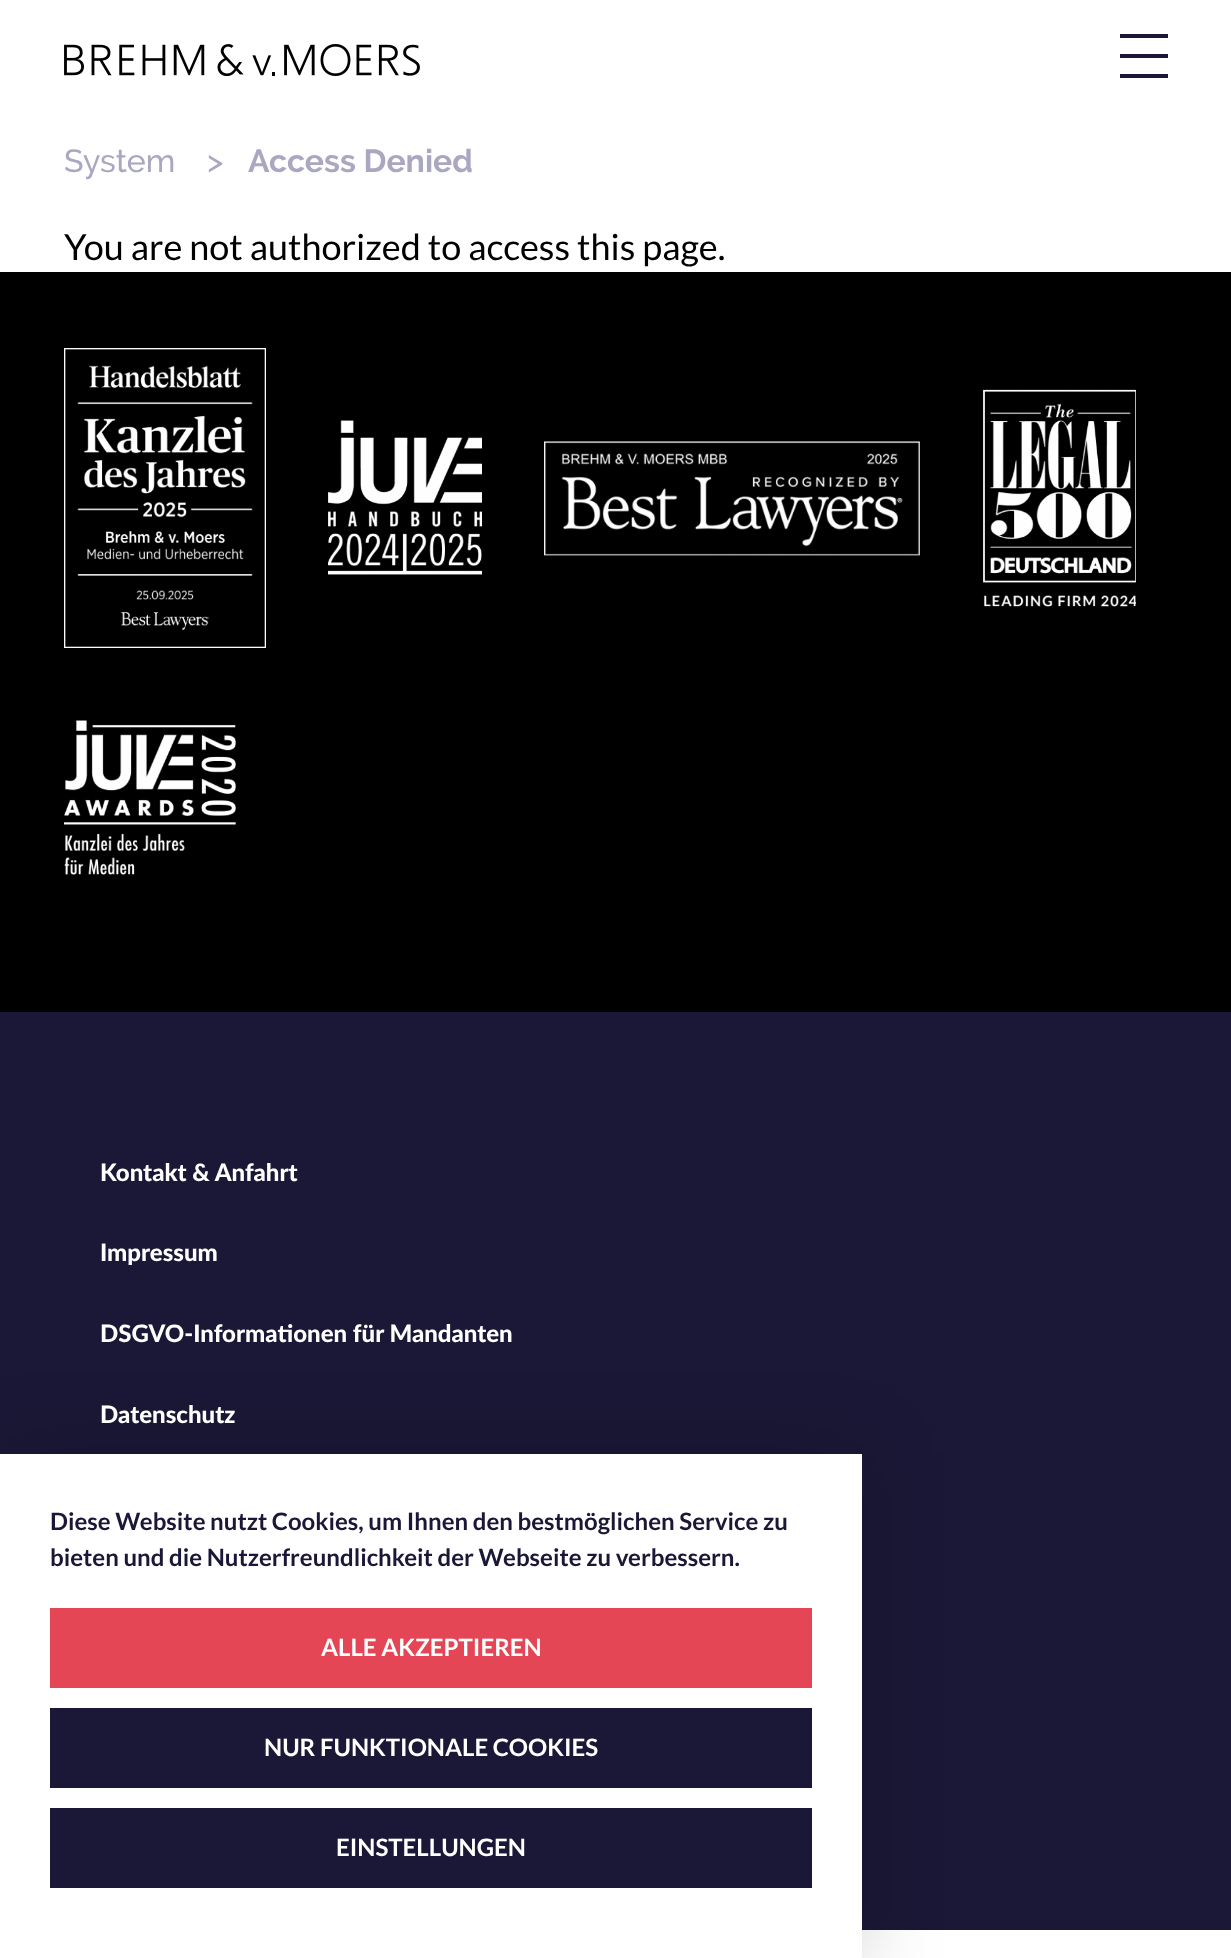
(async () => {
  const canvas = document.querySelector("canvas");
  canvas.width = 1231;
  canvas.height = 1958;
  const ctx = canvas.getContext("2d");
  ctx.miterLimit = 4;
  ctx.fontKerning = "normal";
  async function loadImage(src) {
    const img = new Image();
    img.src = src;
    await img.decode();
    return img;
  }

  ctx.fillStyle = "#ffffff";
  ctx.fillRect(0, 0, 1231, 1958);
  ctx.drawImage(await loadImage("img/1.png"), 64, 44, 356, 32);
  for (const [x, y, w, h, color] of [
    [1120, 54, 48, 4, "#1b1837"],
    [1120, 34, 48, 4, "#1b1837"],
    [1120, 74, 48, 4, "#1b1837"],
    [0, 272, 1231, 740, "#000000"],
  ]) {
    ctx.fillStyle = color;
    ctx.fillRect(x, y, w, h);
  }
  ctx.drawImage(await loadImage("img/2.png"), 64, 348, 202, 300);
  ctx.drawImage(await loadImage("img/3.png"), 328, 420, 154, 155);
  ctx.drawImage(await loadImage("img/4.png"), 544, 441, 376, 115);
  ctx.drawImage(await loadImage("img/5.png"), 983, 389, 153, 218);
  ctx.drawImage(await loadImage("img/6.png"), 64, 720, 172, 155);
  ctx.fillStyle = "#1b1837";
  ctx.fillRect(0, 1012, 1231, 918);
  ctx.fillStyle = "rgba(0, 0, 0, 0.2)";
  ctx.filter = "blur(40px)";
  ctx.beginPath();
  ctx.rect(0, 1454, 862, 504);
  ctx.fill();
  ctx.filter = "none";
  for (const [x, y, w, h, color] of [
    [0, 1454, 862, 504, "#ffffff"],
    [50, 1608, 762, 80, "#e44656"],
    [50, 1708, 762, 80, "#1b1837"],
    [50, 1808, 762, 80, "#1b1837"],
  ]) {
    ctx.fillStyle = color;
    ctx.fillRect(x, y, w, h);
  }
  ctx.font = "500 32px Raleway";
  ctx.fillStyle = "#aaa8c1";
  ctx.fillText("System", 64, 172);
  ctx.fillText(">", 207, 172);
  ctx.font = "bold 32px Raleway";
  ctx.fillText("Access Denied", 248, 172);
  ctx.font = "36px Lato";
  ctx.fillStyle = "#000000";
  ctx.fillText("You are not authorized to access this page.", 64, 260);
  ctx.font = "900 24px Lato";
  ctx.fillStyle = "#ffffff";
  for (const [text, x, y] of [
    ["Kontakt & Anfahrt", 100, 1181],
    ["Impressum", 100, 1261],
    ["DSGVO-Informationen für Mandanten", 100, 1342],
    ["Datenschutz", 100, 1423],
  ]) {
    ctx.fillText(text, x, y);
  }
  ctx.font = "bold 24px Lato";
  ctx.fillStyle = "#1b1837";
  ctx.fillText("Diese Website nutzt Cookies, um Ihnen den bestmöglichen Service zu", 50, 1530);
  ctx.fillText("bieten und die Nutzerfreundlichkeit der Webseite zu verbessern.", 50, 1566);
  ctx.fillStyle = "#ffffff";
  for (const [text, x, y] of [
    ["ALLE AKZEPTIEREN", 321, 1656],
    ["NUR FUNKTIONALE COOKIES", 264, 1756],
    ["EINSTELLUNGEN", 336, 1856],
  ]) {
    ctx.fillText(text, x, y);
  }
})();
